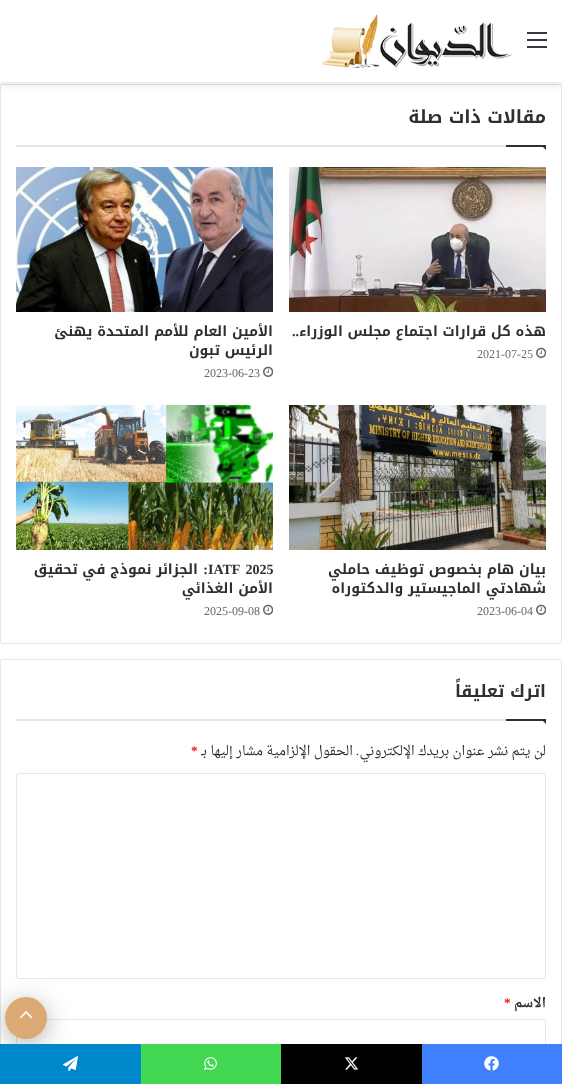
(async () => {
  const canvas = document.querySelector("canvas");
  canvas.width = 562;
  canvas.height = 1084;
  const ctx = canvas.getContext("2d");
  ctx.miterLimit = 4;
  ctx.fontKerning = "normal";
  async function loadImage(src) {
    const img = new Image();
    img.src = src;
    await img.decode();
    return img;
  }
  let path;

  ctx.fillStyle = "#ffffff";
  ctx.fillRect(0, 0, 562, 1084);
  ctx.beginPath();
  ctx.roundRect(0.5, 84.5, 561, 559, 1.5);
  ctx.strokeStyle = "#e6e6e6";
  ctx.stroke();
  ctx.fillStyle = "rgba(0, 0, 0, 0.1)";
  ctx.filter = "blur(3.5px)";
  ctx.beginPath();
  ctx.rect(0, 3, 562, 82);
  ctx.fill();
  ctx.filter = "none";
  for (const [x, y, w, h, color] of [
    [0, 0, 562, 82, "#ffffff"],
    [527, 39, 20, 2, "#37393e"],
    [527, 32, 20, 2, "#37393e"],
    [527, 46, 20, 2, "#37393e"],
  ]) {
    ctx.fillStyle = color;
    ctx.fillRect(x, y, w, h);
  }
  ctx.drawImage(await loadImage("img/1.png"), 322, 14, 190, 54);
  ctx.fillStyle = "#e6e6e6";
  ctx.fillRect(16, 145, 490, 2);
  ctx.fillStyle = "#2c2f34";
  path = new Path2D("M541 145H546V150Z");
  ctx.fill(path);
  ctx.fillRect(506, 145, 40, 2);
  ctx.drawImage(await loadImage("img/2.png"), 289, 167, 257, 145);
  ctx.drawImage(await loadImage("img/3.png"), 536, 347, 10, 11);
  ctx.drawImage(await loadImage("img/4.png"), 16, 167, 257, 145);
  ctx.drawImage(await loadImage("img/3.png"), 263, 366, 10, 11);
  ctx.drawImage(await loadImage("img/5.png"), 289, 405, 257, 145);
  ctx.drawImage(await loadImage("img/3.png"), 536, 604, 10, 11);
  ctx.drawImage(await loadImage("img/6.png"), 16, 405, 257, 145);
  ctx.drawImage(await loadImage("img/3.png"), 263, 604, 10, 11);
  ctx.beginPath();
  ctx.roundRect(0.5, 659.5, 561, 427, 1.5);
  ctx.stroke();
  ctx.fillStyle = "#e6e6e6";
  ctx.fillRect(16, 719, 490, 2);
  ctx.fillStyle = "#2c2f34";
  path = new Path2D("M541 719H546V724Z");
  ctx.fill(path);
  ctx.fillRect(506, 719, 40, 2);
  ctx.beginPath();
  ctx.roundRect(16.5, 773.5, 529, 205, 1.5);
  ctx.stroke();
  ctx.beginPath();
  ctx.roundRect(16.5, 1019.5, 529, 44, 1.5);
  ctx.stroke();
  ctx.fillStyle = "rgba(0, 0, 0, 0.3)";
  ctx.filter = "blur(12.5px)";
  ctx.beginPath();
  ctx.roundRect(5, 1002, 42, 42, 21);
  ctx.fill();
  ctx.filter = "none";
  ctx.fillStyle = "#dbaa73";
  ctx.beginPath();
  ctx.arc(26, 1018, 21, 0, Math.PI * 2);
  ctx.fill();
  ctx.drawImage(await loadImage("img/7.png"), 20, 1011, 13, 8);
  ctx.fillStyle = "#4080ff";
  ctx.fillRect(422, 1044, 140, 40);
  ctx.drawImage(await loadImage("img/8.png"), 484, 1056, 15, 15);
  ctx.fillStyle = "#000000";
  ctx.fillRect(281, 1044, 141, 40);
  ctx.drawImage(await loadImage("img/9.png"), 344, 1057, 15, 13);
  ctx.fillStyle = "#43d854";
  ctx.fillRect(141, 1044, 140, 40);
  ctx.drawImage(await loadImage("img/10.png"), 204, 1057, 13, 13);
  ctx.fillStyle = "#0088cc";
  ctx.fillRect(0, 1044, 141, 40);
  ctx.drawImage(await loadImage("img/11.png"), 63, 1056, 15, 15);
  ctx.direction = "rtl";
  ctx.font = "bold 18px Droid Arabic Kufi";
  ctx.fillStyle = "#2c2f34";
  ctx.fillText("مقالات ذات صلة", 546, 123);
  ctx.font = "bold 14px Droid Arabic Kufi";
  ctx.fillText("هذه كل قرارات اجتماع مجلس الوزراء", 546, 336);
  ctx.font = "bold 14px Liberation Serif";
  ctx.fillText("..", 299, 336);
  ctx.direction = "ltr";
  ctx.font = "12px Liberation Serif";
  ctx.fillStyle = "#666666";
  ctx.fillText("2021-07-25", 477, 358);
  ctx.direction = "rtl";
  ctx.font = "bold 14px Droid Arabic Kufi";
  ctx.fillStyle = "#2c2f34";
  ctx.fillText("الأمين العام للأمم المتحدة يهنئ", 273, 336);
  ctx.fillText("الرئيس تبون", 273, 355);
  ctx.direction = "ltr";
  ctx.font = "12px Liberation Serif";
  ctx.fillStyle = "#666666";
  ctx.fillText("2023-06-23", 204, 377);
  ctx.direction = "rtl";
  ctx.font = "bold 14px Droid Arabic Kufi";
  ctx.fillStyle = "#2c2f34";
  ctx.fillText("بيان هام بخصوص توظيف حاملي", 546, 574);
  ctx.fillText("شهادتي الماجيستير والدكتوراه", 546, 593);
  ctx.direction = "ltr";
  ctx.font = "12px Liberation Serif";
  ctx.fillStyle = "#666666";
  ctx.fillText("2023-06-04", 477, 615);
  ctx.wordSpacing = "2px";
  ctx.font = "bold 14px Liberation Serif";
  ctx.fillStyle = "#2c2f34";
  ctx.fillText("IATF 2025", 208, 574);
  ctx.wordSpacing = "0px";
  ctx.direction = "rtl";
  ctx.fillText(":", 208, 574);
  ctx.font = "bold 14px Droid Arabic Kufi";
  ctx.fillText("الجزائر نموذج في تحقيق", 198, 574);
  ctx.fillText("الأمن الغذائي", 273, 593);
  ctx.direction = "ltr";
  ctx.font = "12px Liberation Serif";
  ctx.fillStyle = "#666666";
  ctx.fillText("2025-09-08", 204, 615);
  ctx.direction = "rtl";
  ctx.font = "bold 17px Droid Arabic Kufi";
  ctx.fillStyle = "#2c2f34";
  ctx.fillText("اترك تعليقاً", 546, 697);
  ctx.font = "13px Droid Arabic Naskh";
  ctx.fillText("لن يتم نشر عنوان بريدك الإلكتروني", 546, 755);
  ctx.fillText("الحقول الإلزامية مشار إليها بـ", 353, 755);
  ctx.direction = "ltr";
  ctx.font = "bold 13px Liberation Serif";
  ctx.fillStyle = "#ff0000";
  ctx.fillText("*", 191, 755);
  ctx.direction = "rtl";
  ctx.font = "13px Liberation Serif";
  ctx.fillStyle = "#2c2f34";
  ctx.fillText(".", 359, 755);
  ctx.font = "bold 13px Droid Arabic Naskh";
  ctx.fillText("الاسم", 546, 1007);
  ctx.direction = "ltr";
  ctx.font = "bold 13px Liberation Serif";
  ctx.fillStyle = "#ff0000";
  ctx.fillText("*", 504, 1007);
})();
